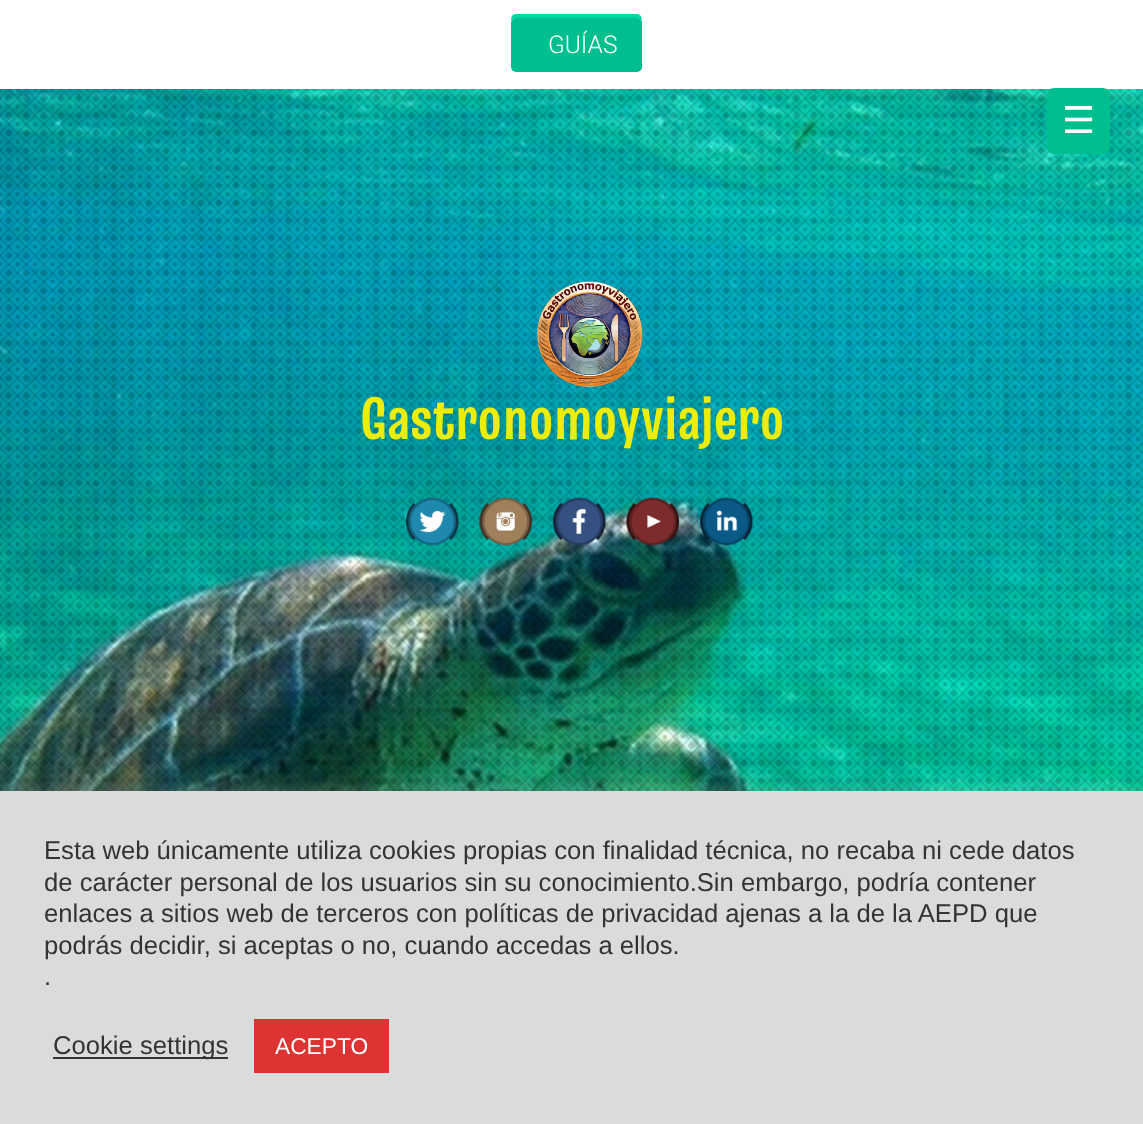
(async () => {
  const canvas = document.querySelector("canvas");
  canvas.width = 1143;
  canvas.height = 1124;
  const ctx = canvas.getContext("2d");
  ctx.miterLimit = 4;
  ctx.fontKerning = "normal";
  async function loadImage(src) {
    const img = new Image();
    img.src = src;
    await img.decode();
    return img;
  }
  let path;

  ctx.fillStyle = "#ffffff";
  ctx.fillRect(0, 0, 1143, 1124);
  ctx.fillStyle = "#00d9a2";
  path = new Path2D("M516 14C511 14 511 19 511 23C511 20 513 18 516 18H637C639 18 641 19 642 21C642 18 641 14 637 14Z");
  ctx.fill(path);
  ctx.fillStyle = "#00bf8f";
  ctx.beginPath();
  ctx.roundRect(511, 18, 131, 54, 5);
  ctx.fill();
  ctx.drawImage(await loadImage("img/1.png"), 0, 89, 1143, 702);
  ctx.drawImage(await loadImage("img/2.png"), 0, 89, 1143, 702);
  ctx.beginPath();
  ctx.roundRect(1047, 88, 63, 66, 7);
  ctx.fill();
  ctx.drawImage(await loadImage("img/3.png"), 537, 281, 106, 106);
  ctx.drawImage(await loadImage("img/4.png"), 406, 497, 53, 49);
  ctx.drawImage(await loadImage("img/5.png"), 479, 497, 53, 49);
  ctx.drawImage(await loadImage("img/6.png"), 553, 497, 53, 49);
  ctx.drawImage(await loadImage("img/7.png"), 626, 497, 53, 49);
  ctx.drawImage(await loadImage("img/8.png"), 700, 497, 53, 49);
  ctx.fillStyle = "rgba(172, 171, 171, 0.3)";
  ctx.filter = "blur(9px)";
  ctx.beginPath();
  ctx.rect(0, 789, 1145, 335);
  ctx.fill();
  ctx.filter = "none";
  for (const [x, y, w, h, color] of [
    [0, 791, 1143, 333, "#dbdbdb"],
    [53, 1057, 175, 2, "#333333"],
    [254, 1019, 135, 54, "#dd3333"],
  ]) {
    ctx.fillStyle = color;
    ctx.fillRect(x, y, w, h);
  }
  ctx.font = "300 24.5px Roboto";
  ctx.fillStyle = "#ffffff";
  ctx.fillText("GUÍAS", 548, 53);
  ctx.font = "37px DejaVu Sans";
  ctx.fillText("☰", 1062, 133);
  ctx.font = "bold 59.5px Truculenta";
  ctx.fillStyle = "#eded0b";
  ctx.fillText("Gastronomoyviajero", 360, 439);
  ctx.font = "25.65px Liberation Sans";
  ctx.fillStyle = "#333333";
  for (const [text, x, y] of [
    ["Esta web únicamente utiliza cookies propias con finalidad técnica, no recaba ni cede datos", 44, 859],
    ["de carácter personal de los usuarios sin su conocimiento.Sin embargo, podría contener", 44, 891],
    ["enlaces a sitios web de terceros con políticas de privacidad ajenas a la de la AEPD que", 44, 922],
    ["podrás decidir, si aceptas o no, cuando accedas a ellos.", 44, 954],
    [".", 44, 985],
    ["Cookie settings", 53, 1054],
  ]) {
    ctx.fillText(text, x, y);
  }
  ctx.font = "22.75px Liberation Sans";
  ctx.fillStyle = "#ffffff";
  ctx.fillText("ACEPTO", 275, 1054);
})();
